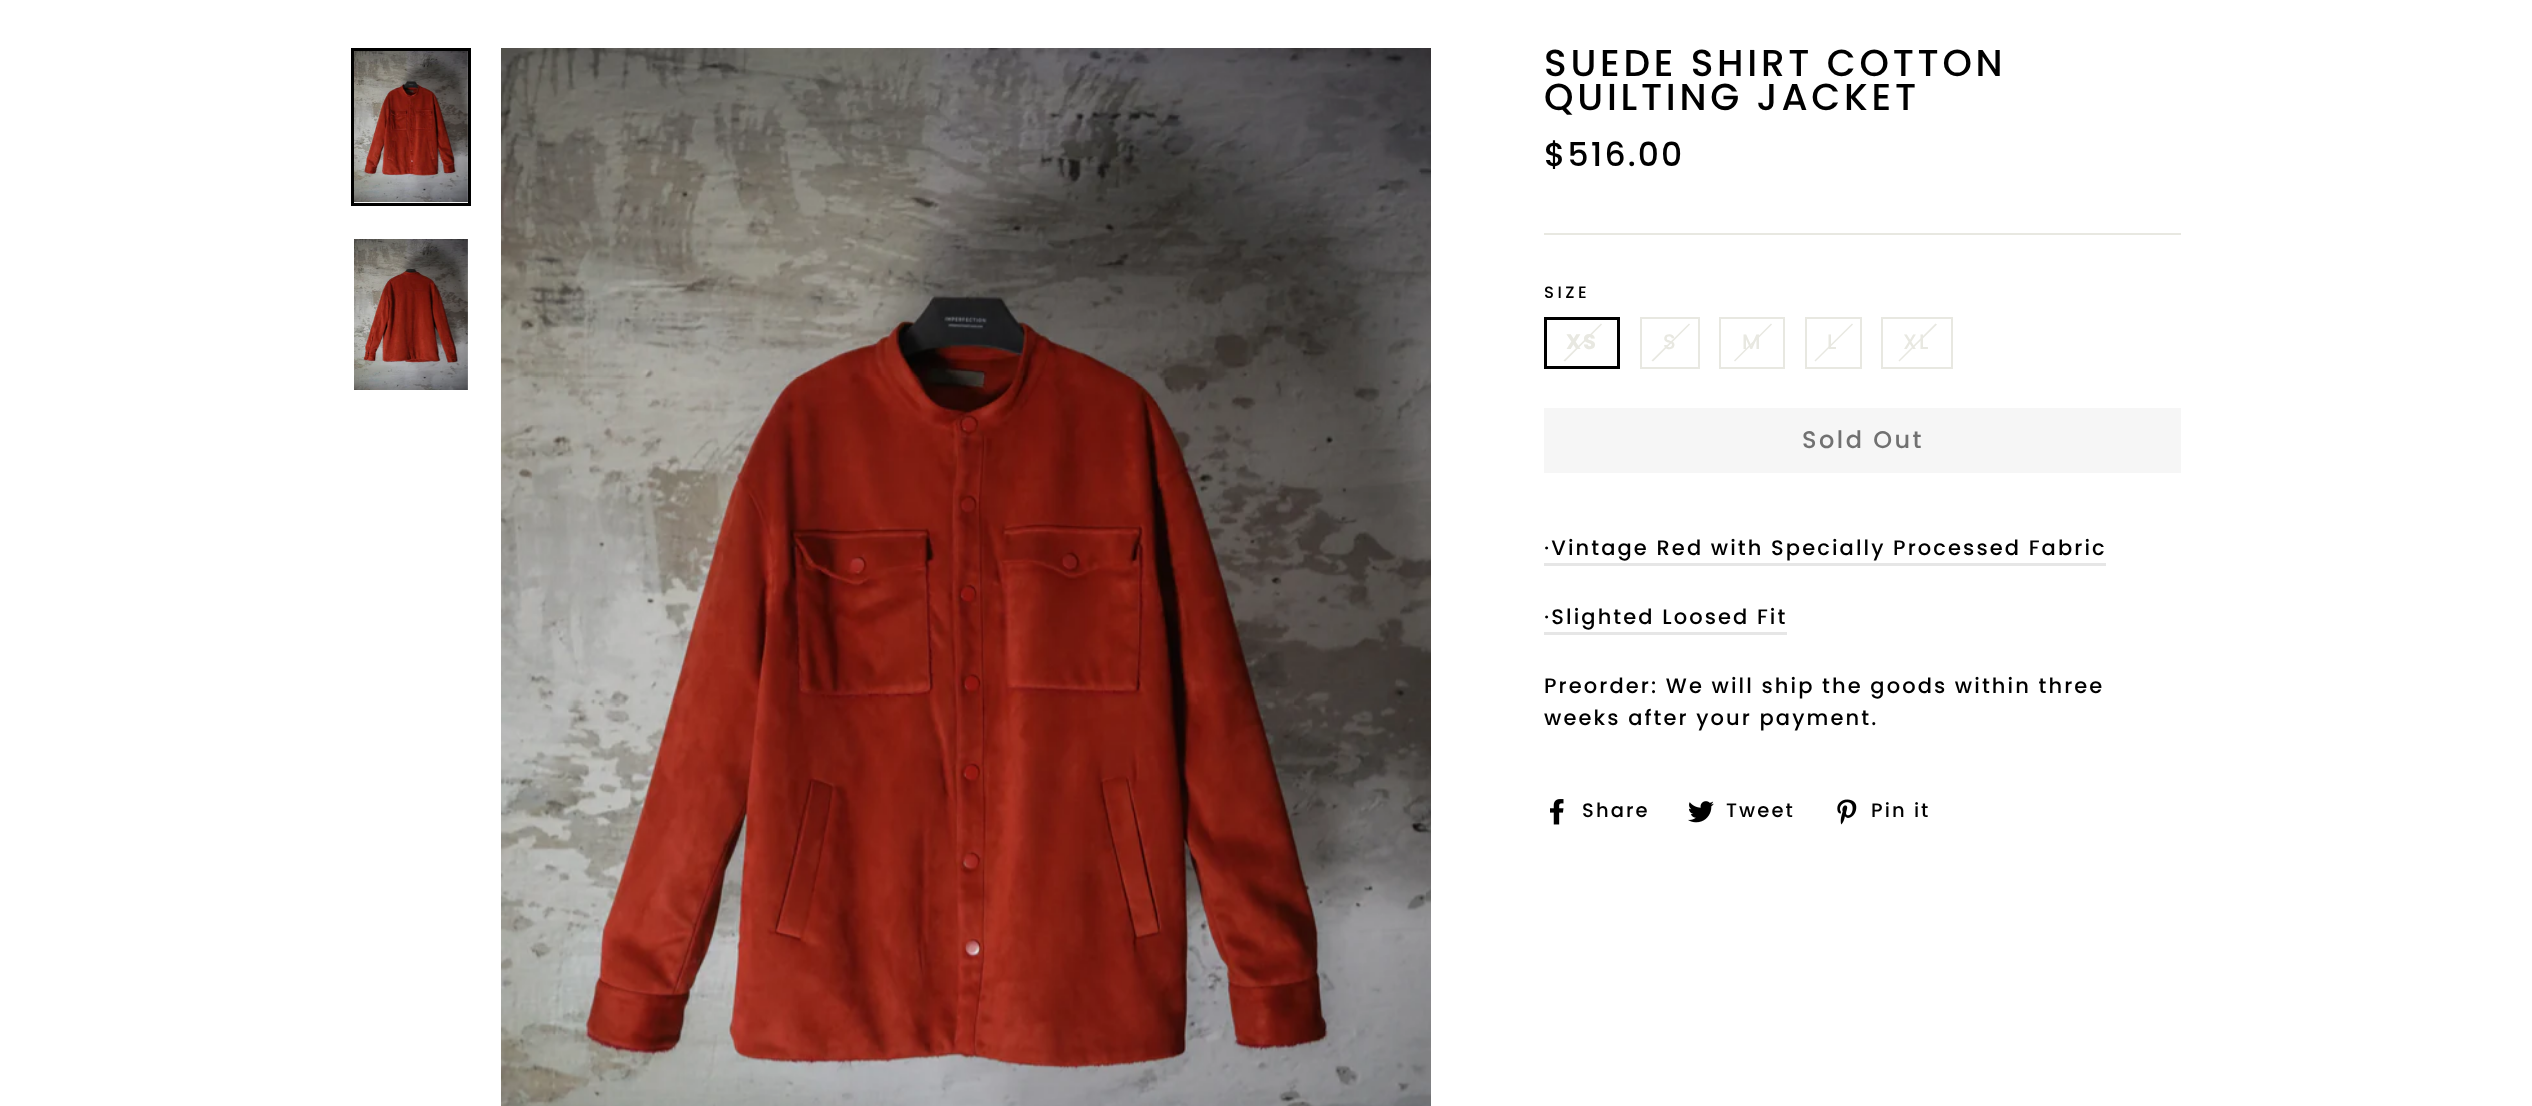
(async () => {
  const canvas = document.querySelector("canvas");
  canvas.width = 2532;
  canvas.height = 1106;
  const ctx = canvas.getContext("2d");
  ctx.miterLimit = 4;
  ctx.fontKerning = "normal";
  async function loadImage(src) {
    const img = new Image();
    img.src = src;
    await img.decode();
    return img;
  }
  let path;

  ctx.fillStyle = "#ffffff";
  ctx.fillRect(0, 0, 2532, 1106);
  ctx.strokeStyle = "#000000";
  ctx.lineWidth = 3;
  ctx.strokeRect(352.5, 49.5, 117, 155);
  ctx.fillStyle = "#f4f4f4";
  ctx.fillRect(354, 51, 114, 152);
  ctx.drawImage(await loadImage("img/1.png"), 354, 51, 114, 151);
  ctx.drawImage(await loadImage("img/2.png"), 354, 239, 114, 151);
  ctx.drawImage(await loadImage("img/3.png"), 501, 48, 930, 1058);
  ctx.fillStyle = "#e8e8e1";
  ctx.fillRect(1544, 233, 637, 2);
  path = new Path2D("M1601 323.5L1602 324.5L1565 361.5L1563.5 360.5Z");
  ctx.fill(path);
  ctx.strokeRect(1545.5, 318.5, 73, 49);
  path = new Path2D("M1689 323.5L1690 324.5L1653 361.5L1651.5 360.5Z");
  ctx.fill(path);
  ctx.strokeStyle = "#e8e8e1";
  ctx.lineWidth = 2;
  ctx.strokeRect(1641, 318, 58, 50);
  path = new Path2D("M1771 323.5L1772 324.5L1735 361.5L1734 360.5Z");
  ctx.fill(path);
  ctx.strokeRect(1720, 318, 64, 50);
  path = new Path2D("M1852 323.5L1853 324.5L1815.5 361.5L1814.5 360.5Z");
  ctx.fill(path);
  ctx.strokeRect(1806, 318, 55, 50);
  path = new Path2D("M1935.5 323.5L1937 324.5L1899.5 361.5L1898.5 360.5Z");
  ctx.fill(path);
  ctx.strokeRect(1882, 318, 70, 50);
  for (const [x, y, w, h, color] of [
    [1544, 408, 637, 65, "#f6f6f6"],
    [1544, 563, 562, 3, "#e6e6e6"],
    [1544, 632, 243, 3, "#e6e6e6"],
  ]) {
    ctx.fillStyle = color;
    ctx.fillRect(x, y, w, h);
  }
  ctx.drawImage(await loadImage("img/4.png"), 1550, 799, 14, 26);
  ctx.drawImage(await loadImage("img/5.png"), 1688, 801, 26, 22);
  ctx.drawImage(await loadImage("img/6.png"), 1837, 799, 20, 26);
  ctx.letterSpacing = "3.75px";
  ctx.font = "500 37.5px Poppins";
  ctx.fillStyle = "#000000";
  ctx.fillText("SUEDE SHIRT COTTON", 1544, 76);
  ctx.fillText("QUILTING JACKET", 1544, 110);
  ctx.letterSpacing = "2.1px";
  ctx.font = "500 33px Poppins";
  ctx.fillText("$516.00", 1544, 166);
  ctx.letterSpacing = "3.5px";
  ctx.font = "500 16.5px Poppins";
  ctx.fillText("SIZE", 1544, 298);
  ctx.letterSpacing = "2.1px";
  ctx.font = "bold 21px Poppins";
  ctx.fillStyle = "#e8e8e1";
  ctx.fillText("XS", 1566, 349);
  ctx.font = "500 21px Poppins";
  for (const [text, x, y] of [
    ["S", 1663, 349],
    ["M", 1742, 349],
    ["L", 1827, 349],
    ["XL", 1903, 349],
  ]) {
    ctx.fillText(text, x, y);
  }
  ctx.letterSpacing = "2.5px";
  ctx.font = "500 24px Poppins";
  ctx.fillStyle = "#717171";
  ctx.fillText("Sold Out", 1802, 448);
  ctx.letterSpacing = "2.1px";
  ctx.font = "500 21px Poppins";
  ctx.fillStyle = "#000000";
  for (const [text, x, y] of [
    ["·Vintage Red with Specially Processed Fabric", 1544, 555],
    ["·Slighted Loosed Fit", 1544, 624],
    ["Preorder: We will ship the goods within three", 1544, 693],
    ["weeks after your payment.", 1544, 725],
  ]) {
    ctx.fillText(text, x, y);
  }
  ctx.font = "500 19.5px Poppins";
  for (const [text, x, y] of [
    ["Share", 1582, 817],
    ["Tweet", 1726, 817],
    ["Pin it", 1871, 817],
  ]) {
    ctx.fillText(text, x, y);
  }
})();
